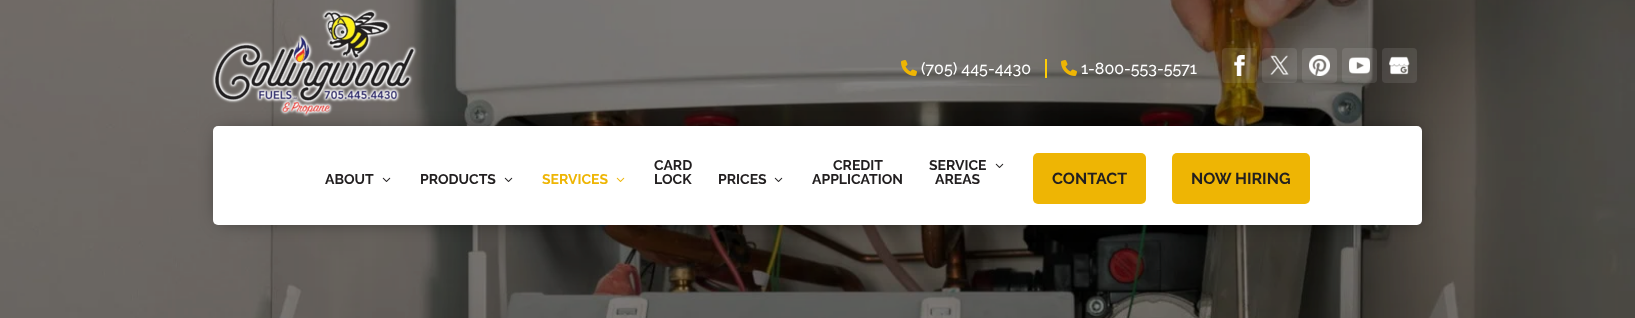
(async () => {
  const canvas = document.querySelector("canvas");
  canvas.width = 1635;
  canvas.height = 318;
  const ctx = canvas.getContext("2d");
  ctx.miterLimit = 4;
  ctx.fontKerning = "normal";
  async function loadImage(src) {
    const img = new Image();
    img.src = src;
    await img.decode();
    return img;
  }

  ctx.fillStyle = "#ffffff";
  ctx.fillRect(0, 0, 1635, 318);
  ctx.drawImage(await loadImage("img/1.png"), 0, 0, 1635, 318);
  ctx.drawImage(await loadImage("img/2.png"), 211, 8, 206, 109);
  ctx.fillStyle = "#fecd08";
  ctx.fillRect(1045, 59, 2, 19);
  ctx.drawImage(await loadImage("img/3.png"), 901, 60, 16, 16);
  ctx.drawImage(await loadImage("img/4.png"), 1061, 60, 16, 16);
  ctx.fillStyle = "rgba(255, 255, 255, 0.1)";
  ctx.beginPath();
  ctx.roundRect(1222, 48, 35, 35, 4);
  ctx.fill();
  ctx.drawImage(await loadImage("img/5.png"), 1234, 55, 11, 21);
  ctx.beginPath();
  ctx.roundRect(1262, 48, 35, 35, 4);
  ctx.fill();
  ctx.drawImage(await loadImage("img/6.png"), 1270, 55, 19, 20);
  ctx.beginPath();
  ctx.roundRect(1302, 48, 35, 35, 4);
  ctx.fill();
  ctx.drawImage(await loadImage("img/7.png"), 1309, 55, 21, 21);
  ctx.beginPath();
  ctx.roundRect(1342, 48, 35, 35, 4);
  ctx.fill();
  ctx.drawImage(await loadImage("img/8.png"), 1349, 57, 21, 17);
  ctx.beginPath();
  ctx.roundRect(1382, 48, 35, 35, 4);
  ctx.fill();
  ctx.drawImage(await loadImage("img/9.png"), 1389, 56, 21, 19);
  ctx.fillStyle = "rgba(0, 0, 0, 0.62)";
  ctx.filter = "blur(10px)";
  ctx.beginPath();
  ctx.rect(221, 134, 1195, 85);
  ctx.fill();
  ctx.filter = "none";
  ctx.fillStyle = "#ffffff";
  ctx.beginPath();
  ctx.roundRect(213, 126, 1209, 99, 5);
  ctx.fill();
  ctx.drawImage(await loadImage("img/10.png"), 382, 177, 9, 5);
  ctx.drawImage(await loadImage("img/10.png"), 504, 177, 9, 5);
  ctx.drawImage(await loadImage("img/11.png"), 616, 177, 9, 5);
  ctx.drawImage(await loadImage("img/10.png"), 774, 177, 9, 5);
  ctx.drawImage(await loadImage("img/10.png"), 995, 163, 9, 5);
  ctx.fillStyle = "#eeb504";
  ctx.beginPath();
  ctx.roundRect(1033, 153, 113, 51, 5);
  ctx.fill();
  ctx.beginPath();
  ctx.roundRect(1172, 153, 138, 51, 5);
  ctx.fill();
  ctx.font = "500 16px Raleway";
  ctx.fillStyle = "#ffffff";
  ctx.fillText("(705) 445-4430", 921, 74);
  ctx.fillText("1-800-553-5571", 1081, 74);
  ctx.font = "bold 14px Raleway";
  ctx.fillStyle = "#221f20";
  ctx.fillText("ABOUT", 325, 184);
  ctx.fillText("PRODUCTS", 420, 184);
  ctx.fillStyle = "#eeb504";
  ctx.fillText("SERVICES", 542, 184);
  ctx.fillStyle = "#221f20";
  for (const [text, x, y] of [
    ["CARD", 654, 170],
    ["LOCK", 654, 184],
    ["PRICES", 718, 184],
    ["CREDIT", 833, 170],
    ["APPLICATION", 812, 184],
    ["SERVICE", 929, 170],
    ["AREAS", 935, 184],
  ]) {
    ctx.fillText(text, x, y);
  }
  ctx.font = "bold 16px Raleway";
  ctx.fillText("CONTACT", 1052, 184);
  ctx.fillText("NOW HIRING", 1191, 184);
})();
